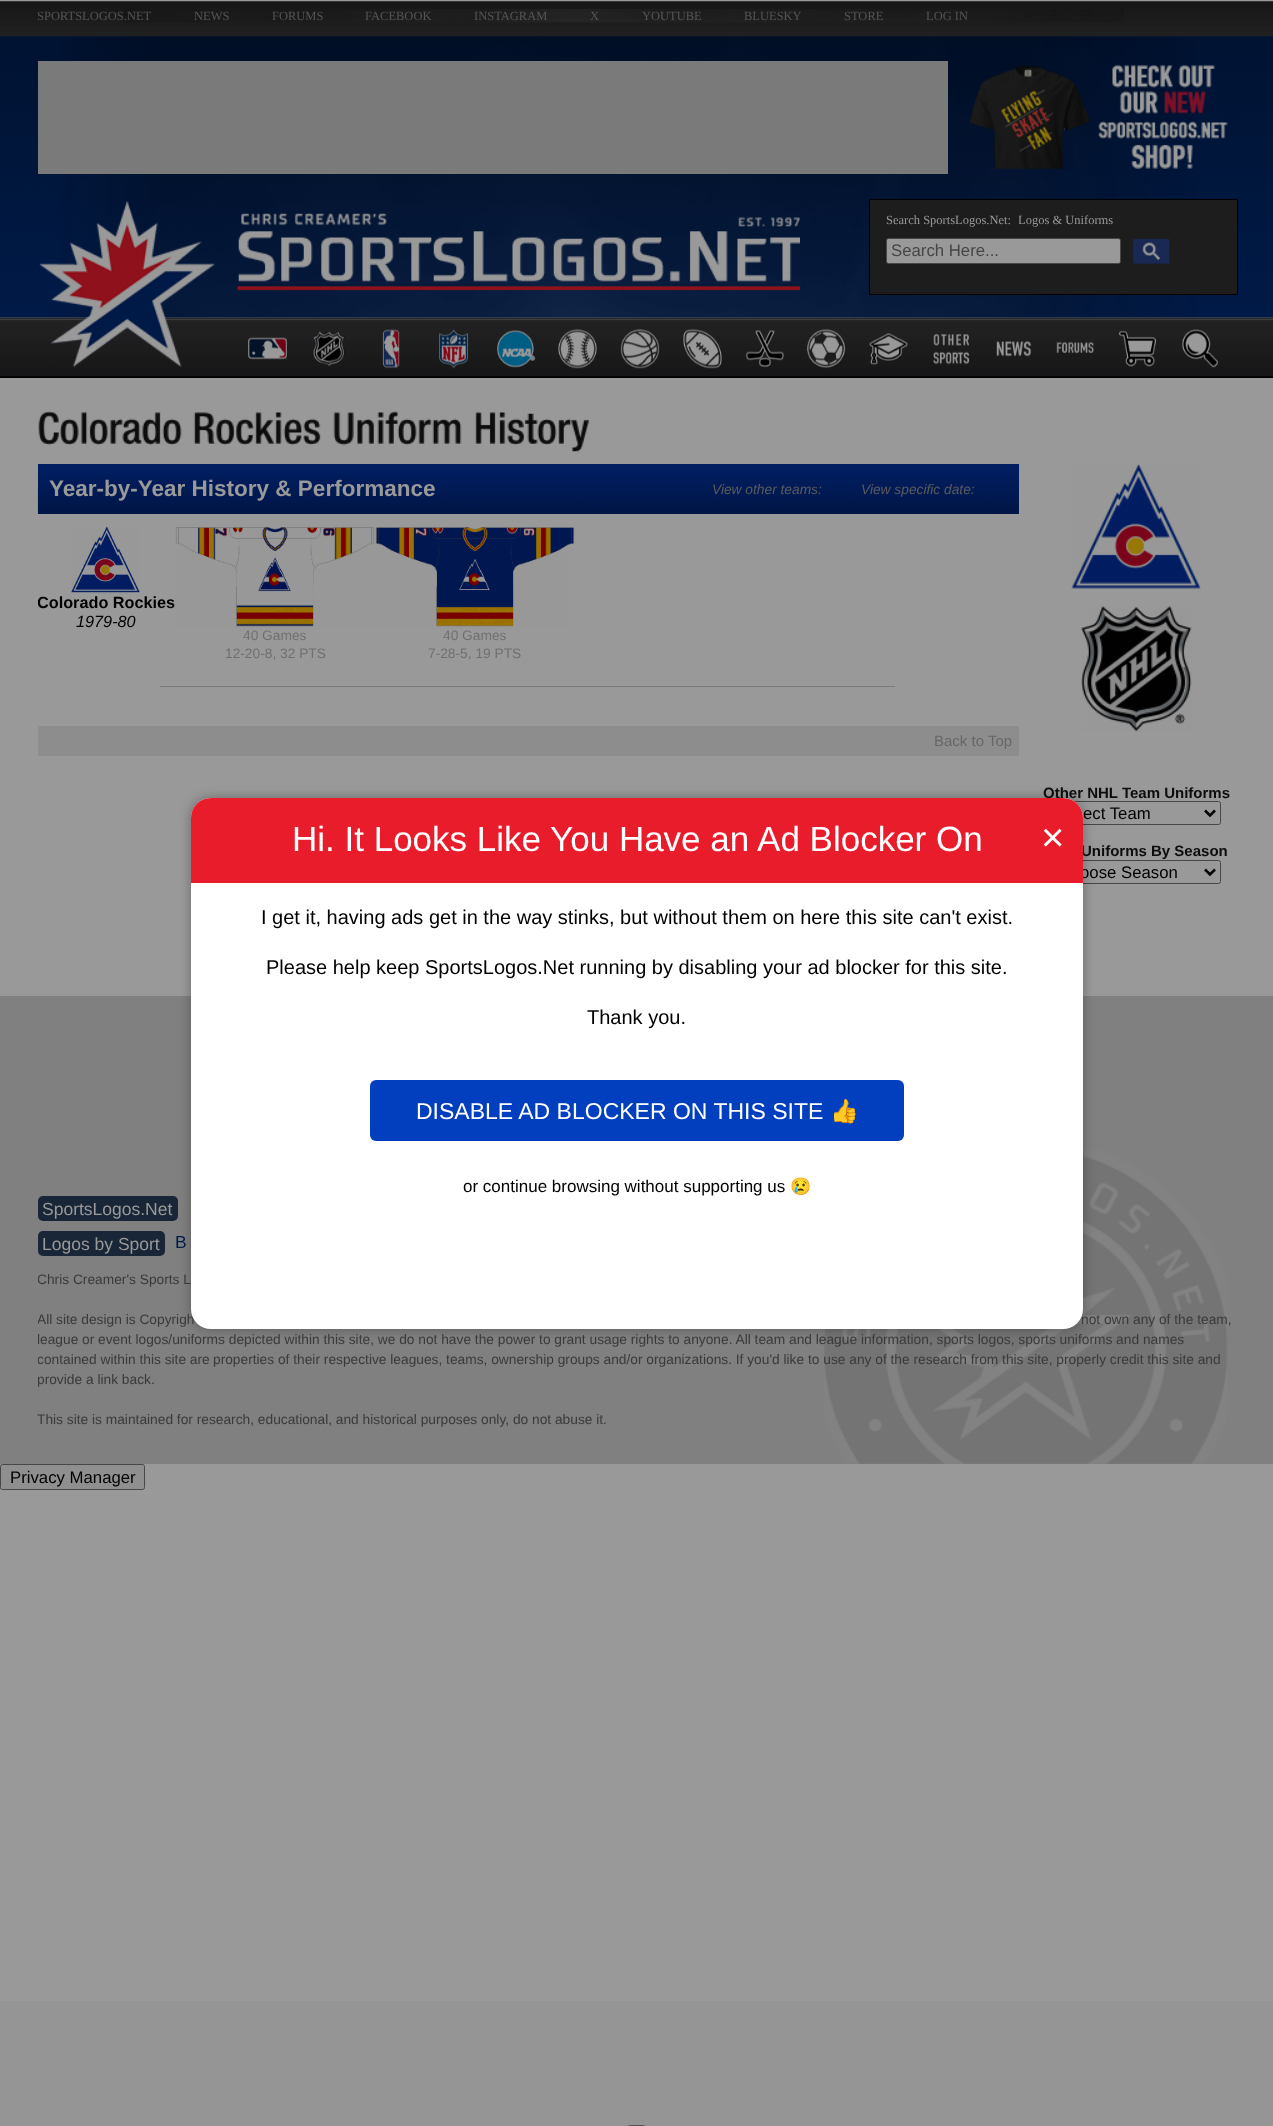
(async () => {
  const canvas = document.querySelector("canvas");
  canvas.width = 1273;
  canvas.height = 2126;
  const ctx = canvas.getContext("2d");
  ctx.miterLimit = 4;
  ctx.fontKerning = "normal";
  async function loadImage(src) {
    const img = new Image();
    img.src = src;
    await img.decode();
    return img;
  }
  let path;

  ctx.fillStyle = "#999999";
  ctx.fillRect(0, 0, 1273, 2126);
  ctx.drawImage(await loadImage("img/1.png"), 0, 36, 1273, 282);
  ctx.drawImage(await loadImage("img/2.png"), 0, 1, 1273, 36);
  ctx.drawImage(await loadImage("img/3.png"), 124, 9, 1000, 14);
  ctx.fillStyle = "#000000";
  ctx.fillRect(0, 376, 1273, 2);
  ctx.drawImage(await loadImage("img/9.png"), 0, 317, 1273, 60);
  ctx.drawImage(await loadImage("img/4.png"), 62, 36, 1134, 282);
  ctx.fillStyle = "#7a7a7a";
  ctx.fillRect(38, 61, 910, 113);
  ctx.drawImage(await loadImage("img/5.png"), 969, 64, 259, 105);
  ctx.drawImage(await loadImage("img/6.png"), 39, 200, 176, 168);
  ctx.drawImage(await loadImage("img/7.png"), 237, 213, 563, 78);
  ctx.fillStyle = "#1d1d1e";
  ctx.beginPath();
  ctx.rect(869.5, 199.5, 368, 95);
  ctx.fill();
  ctx.strokeStyle = "#000000";
  ctx.stroke();
  ctx.fillStyle = "#999999";
  ctx.beginPath();
  ctx.roundRect(886.5, 238.5, 234, 25, 2);
  ctx.fill();
  ctx.strokeStyle = "#474747";
  ctx.stroke();
  ctx.drawImage(await loadImage("img/8.png"), 1132, 238, 38, 26);
  ctx.drawImage(await loadImage("img/10.png"), 248, 337, 39, 23);
  ctx.drawImage(await loadImage("img/11.png"), 312, 331, 33, 36);
  ctx.drawImage(await loadImage("img/12.png"), 382, 329, 18, 40);
  ctx.drawImage(await loadImage("img/13.png"), 439, 329, 30, 40);
  ctx.drawImage(await loadImage("img/14.png"), 497, 330, 39, 38);
  ctx.drawImage(await loadImage("img/15.png"), 558, 329, 39, 40);
  ctx.drawImage(await loadImage("img/16.png"), 620, 329, 40, 40);
  ctx.drawImage(await loadImage("img/17.png"), 683, 329, 39, 40);
  ctx.drawImage(await loadImage("img/18.png"), 745, 330, 39, 38);
  ctx.drawImage(await loadImage("img/19.png"), 807, 329, 39, 40);
  ctx.drawImage(await loadImage("img/20.png"), 869, 333, 39, 32);
  ctx.drawImage(await loadImage("img/21.png"), 933, 333, 37, 32);
  ctx.drawImage(await loadImage("img/22.png"), 996, 341, 36, 16);
  ctx.drawImage(await loadImage("img/23.png"), 1056, 342, 38, 12);
  ctx.drawImage(await loadImage("img/24.png"), 1119, 330, 38, 37);
  ctx.drawImage(await loadImage("img/25.png"), 1182, 329, 37, 39);
  ctx.drawImage(await loadImage("img/26.png"), 38, 411, 144, 35);
  ctx.drawImage(await loadImage("img/27.png"), 193, 412, 128, 34);
  ctx.drawImage(await loadImage("img/28.png"), 333, 411, 129, 35);
  ctx.drawImage(await loadImage("img/29.png"), 475, 412, 114, 40);
  ctx.fillStyle = "#001e60";
  ctx.fillRect(38, 464, 981, 50);
  ctx.drawImage(await loadImage("img/30.png"), 37, 473, 982, 41);
  ctx.drawImage(await loadImage("img/31.png"), 71, 526, 69, 67);
  ctx.drawImage(await loadImage("img/32.png"), 175, 527, 200, 100);
  ctx.drawImage(await loadImage("img/33.png"), 375, 527, 200, 100);
  ctx.fillStyle = "#7a7a7a";
  ctx.fillRect(160, 686, 735, 1);
  ctx.fillStyle = "#8d8d8d";
  ctx.fillRect(38, 726, 981, 30);
  ctx.drawImage(await loadImage("img/34.png"), 1071, 463, 130, 126);
  ctx.drawImage(await loadImage("img/35.png"), 1081, 606, 111, 126);
  ctx.beginPath();
  ctx.roundRect(1053.5, 801.5, 167, 23, 2);
  ctx.stroke();
  path = new Path2D("M1205 810.5L1210 815.5L1215 810.5");
  ctx.strokeStyle = "#000000";
  ctx.lineWidth = 2.5;
  ctx.stroke(path);
  ctx.beginPath();
  ctx.roundRect(1053.5, 860.5, 167, 23, 2);
  ctx.strokeStyle = "#474747";
  ctx.lineWidth = 1;
  ctx.stroke();
  path = new Path2D("M1205 869.5L1210 874.5L1215 869.5");
  ctx.strokeStyle = "#000000";
  ctx.lineWidth = 2.5;
  ctx.stroke(path);
  ctx.fillStyle = "#808080";
  ctx.fillRect(0, 996, 1273, 468);
  ctx.drawImage(await loadImage("img/36.png"), 824, 1148, 404, 316);
  ctx.fillStyle = "#192637";
  ctx.beginPath();
  ctx.roundRect(38, 1196, 140, 25, 5);
  ctx.fill();
  ctx.beginPath();
  ctx.roundRect(38, 1231, 127, 25, 5);
  ctx.fill();
  ctx.fillStyle = "#8f8f8f";
  ctx.beginPath();
  ctx.roundRect(0.5, 1464.5, 144, 25, 2);
  ctx.fill();
  ctx.strokeStyle = "#474747";
  ctx.lineWidth = 1;
  ctx.stroke();
  ctx.fillStyle = "rgba(0, 0, 0, 0.3)";
  ctx.filter = "blur(6px)";
  ctx.beginPath();
  ctx.roundRect(191, 798, 892, 531, 20);
  ctx.fill();
  ctx.filter = "none";
  ctx.fillStyle = "#959595";
  ctx.fillRect(0, 2001, 1273, 125);
  ctx.beginPath();
  ctx.roundRect(623.5, 2125.5, 26, 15, 13);
  ctx.strokeStyle = "#525252";
  ctx.stroke();
  ctx.save();
  ctx.beginPath();
  ctx.rect(38, 9, 1200, 14);
  ctx.clip();
  ctx.font = "12.5px Liberation Serif";
  ctx.fillStyle = "#555555";
  ctx.fillText("SPORTSLOGOS.NET", 37, 20);
  ctx.restore();
  ctx.font = "12.5px Liberation Serif";
  ctx.fillStyle = "#555555";
  for (const [text, x, y] of [
    ["NEWS", 194, 20],
    ["FORUMS", 272, 20],
    ["FACEBOOK", 365, 20],
    ["INSTAGRAM", 474, 20],
    ["X", 590, 20],
    ["YOUTUBE", 642, 20],
    ["BLUESKY", 744, 20],
    ["STORE", 844, 20],
    ["LOG IN", 926, 20],
  ]) {
    ctx.fillText(text, x, y);
  }
  ctx.fillStyle = "#999999";
  ctx.fillText("Search SportsLogos.Net:", 886, 224);
  ctx.save();
  ctx.beginPath();
  ctx.rect(1019, 213, 137, 25);
  ctx.clip();
  ctx.fillText("Logos & Uniforms", 1018, 224);
  ctx.restore();
  ctx.font = "16.75px Liberation Sans";
  ctx.fillStyle = "#464646";
  ctx.fillText("Search Here...", 891, 256);
  ctx.font = "bold 22.5px Liberation Sans";
  ctx.fillStyle = "#999999";
  ctx.fillText("Year-by-Year History & Performance", 49, 496);
  ctx.font = "italic 13.75px Liberation Sans";
  ctx.fillStyle = "#5c5c5c";
  ctx.fillText("View other teams:", 712, 494);
  ctx.fillText("View specific date:", 861, 494);
  ctx.save();
  ctx.beginPath();
  ctx.rect(38, 464, 981, 250);
  ctx.clip();
  ctx.font = "bold 16.25px Liberation Sans";
  ctx.fillStyle = "#000000";
  ctx.fillText("Colorado Rockies", 37, 608);
  ctx.restore();
  ctx.font = "italic 16.25px Liberation Sans";
  ctx.fillStyle = "#000000";
  ctx.fillText("1979-80", 76, 627);
  ctx.font = "13.75px Liberation Sans";
  ctx.fillStyle = "#707070";
  for (const [text, x, y] of [
    ["40 Games", 243, 640],
    ["12-20-8, 32 PTS", 225, 658],
    ["40 Games", 443, 640],
    ["7-28-5, 19 PTS", 428, 658],
  ]) {
    ctx.fillText(text, x, y);
  }
  ctx.font = "15px Liberation Sans";
  ctx.fillStyle = "#676767";
  ctx.fillText("Back to Top", 934, 746);
  ctx.font = "bold 15px Liberation Sans";
  ctx.fillStyle = "#0d0d0d";
  ctx.fillText("Other NHL Team Uniforms", 1043, 798);
  ctx.font = "16.75px Liberation Sans";
  ctx.fillStyle = "#000000";
  ctx.fillText("ect Team", 1083, 819);
  ctx.font = "bold 15px Liberation Sans";
  ctx.fillStyle = "#0d0d0d";
  ctx.fillText("Uniforms By Season", 1081, 856);
  ctx.font = "16.75px Liberation Sans";
  ctx.fillStyle = "#000000";
  ctx.fillText("oose Season", 1080, 878);
  ctx.font = "17.5px Liberation Sans";
  ctx.fillStyle = "#999999";
  ctx.fillText("SportsLogos.Net", 42, 1215);
  ctx.fillText("Logos by Sport", 42, 1250);
  ctx.fillStyle = "#001a47";
  ctx.fillText("B", 175, 1248);
  ctx.save();
  ctx.beginPath();
  ctx.rect(38, 996, 1200, 468);
  ctx.clip();
  ctx.font = "13.75px Liberation Sans";
  ctx.fillStyle = "#3a3a3a";
  ctx.fillText("Chris Creamer's Sports L", 37, 1284);
  ctx.fillText("All site design is Copyrigh", 37, 1324);
  ctx.restore();
  ctx.font = "13.75px Liberation Sans";
  ctx.fillStyle = "#3a3a3a";
  ctx.fillText("not own any of the team,", 1081, 1324);
  ctx.save();
  ctx.beginPath();
  ctx.rect(38, 996, 1200, 468);
  ctx.clip();
  ctx.fillText("league", 37, 1344);
  ctx.restore();
  ctx.fillText("or event logos/uniforms depicted within this site, we do not have the power to grant usage rights to anyone. All team and league information, sports logos, sports uniforms and names", 82, 1344);
  ctx.save();
  ctx.beginPath();
  ctx.rect(38, 996, 1200, 468);
  ctx.clip();
  ctx.fillText("contained within this site are", 37, 1364);
  ctx.restore();
  ctx.fillText("properties of their respective leagues, teams, ownership groups and/or organizations. If you'd like to use any of the research from this site, properly credit this site and", 213, 1364);
  ctx.save();
  ctx.beginPath();
  ctx.rect(38, 996, 1200, 468);
  ctx.clip();
  ctx.fillText("provide a link back.", 37, 1384);
  ctx.restore();
  ctx.fillText("This site is maintained for research, educational, and historical purposes only, do not abuse it.", 37, 1424);
  ctx.font = "16.75px Liberation Sans";
  ctx.fillStyle = "#000000";
  ctx.fillText("Privacy Manager", 10, 1483);
  ctx.fillStyle = "#ffffff";
  ctx.beginPath();
  ctx.roundRect(191, 798, 892, 531, 20);
  ctx.fill();
  ctx.fillStyle = "#e91c2b";
  ctx.beginPath();
  ctx.roundRect(191, 798, 892, 85, [20, 20, 0, 0]);
  ctx.fill();
  ctx.font = "35px Liberation Sans";
  ctx.fillStyle = "#ffffff";
  ctx.fillText("Hi. It Looks Like You Have an Ad Blocker On", 292, 851);
  ctx.font = "40px Liberation Sans";
  ctx.fillText("×", 1041, 851);
  ctx.font = "20px Liberation Sans";
  ctx.fillStyle = "#000000";
  for (const [text, x, y] of [
    ["I get it, having ads get in the way stinks, but without them on here this site can't exist.", 261, 924],
    ["Please help keep SportsLogos.Net running by disabling your ad blocker for this site.", 266, 974],
    ["Thank you.", 587, 1024],
  ]) {
    ctx.fillText(text, x, y);
  }
  ctx.fillStyle = "#013fbe";
  ctx.beginPath();
  ctx.roundRect(370, 1080, 534, 61, 6);
  ctx.fill();
  ctx.font = "23px Liberation Sans";
  ctx.fillStyle = "#ffffff";
  ctx.fillText("DISABLE AD BLOCKER ON THIS SITE", 416, 1119);
  ctx.font = "23px Noto Color Emoji";
  ctx.fillText("👍", 830, 1119);
  ctx.font = "17px Liberation Sans";
  ctx.fillStyle = "#000000";
  ctx.fillText("or continue browsing without supporting us", 463, 1192);
  ctx.font = "17px Noto Color Emoji";
  ctx.fillText("😢", 790, 1192);
})();
